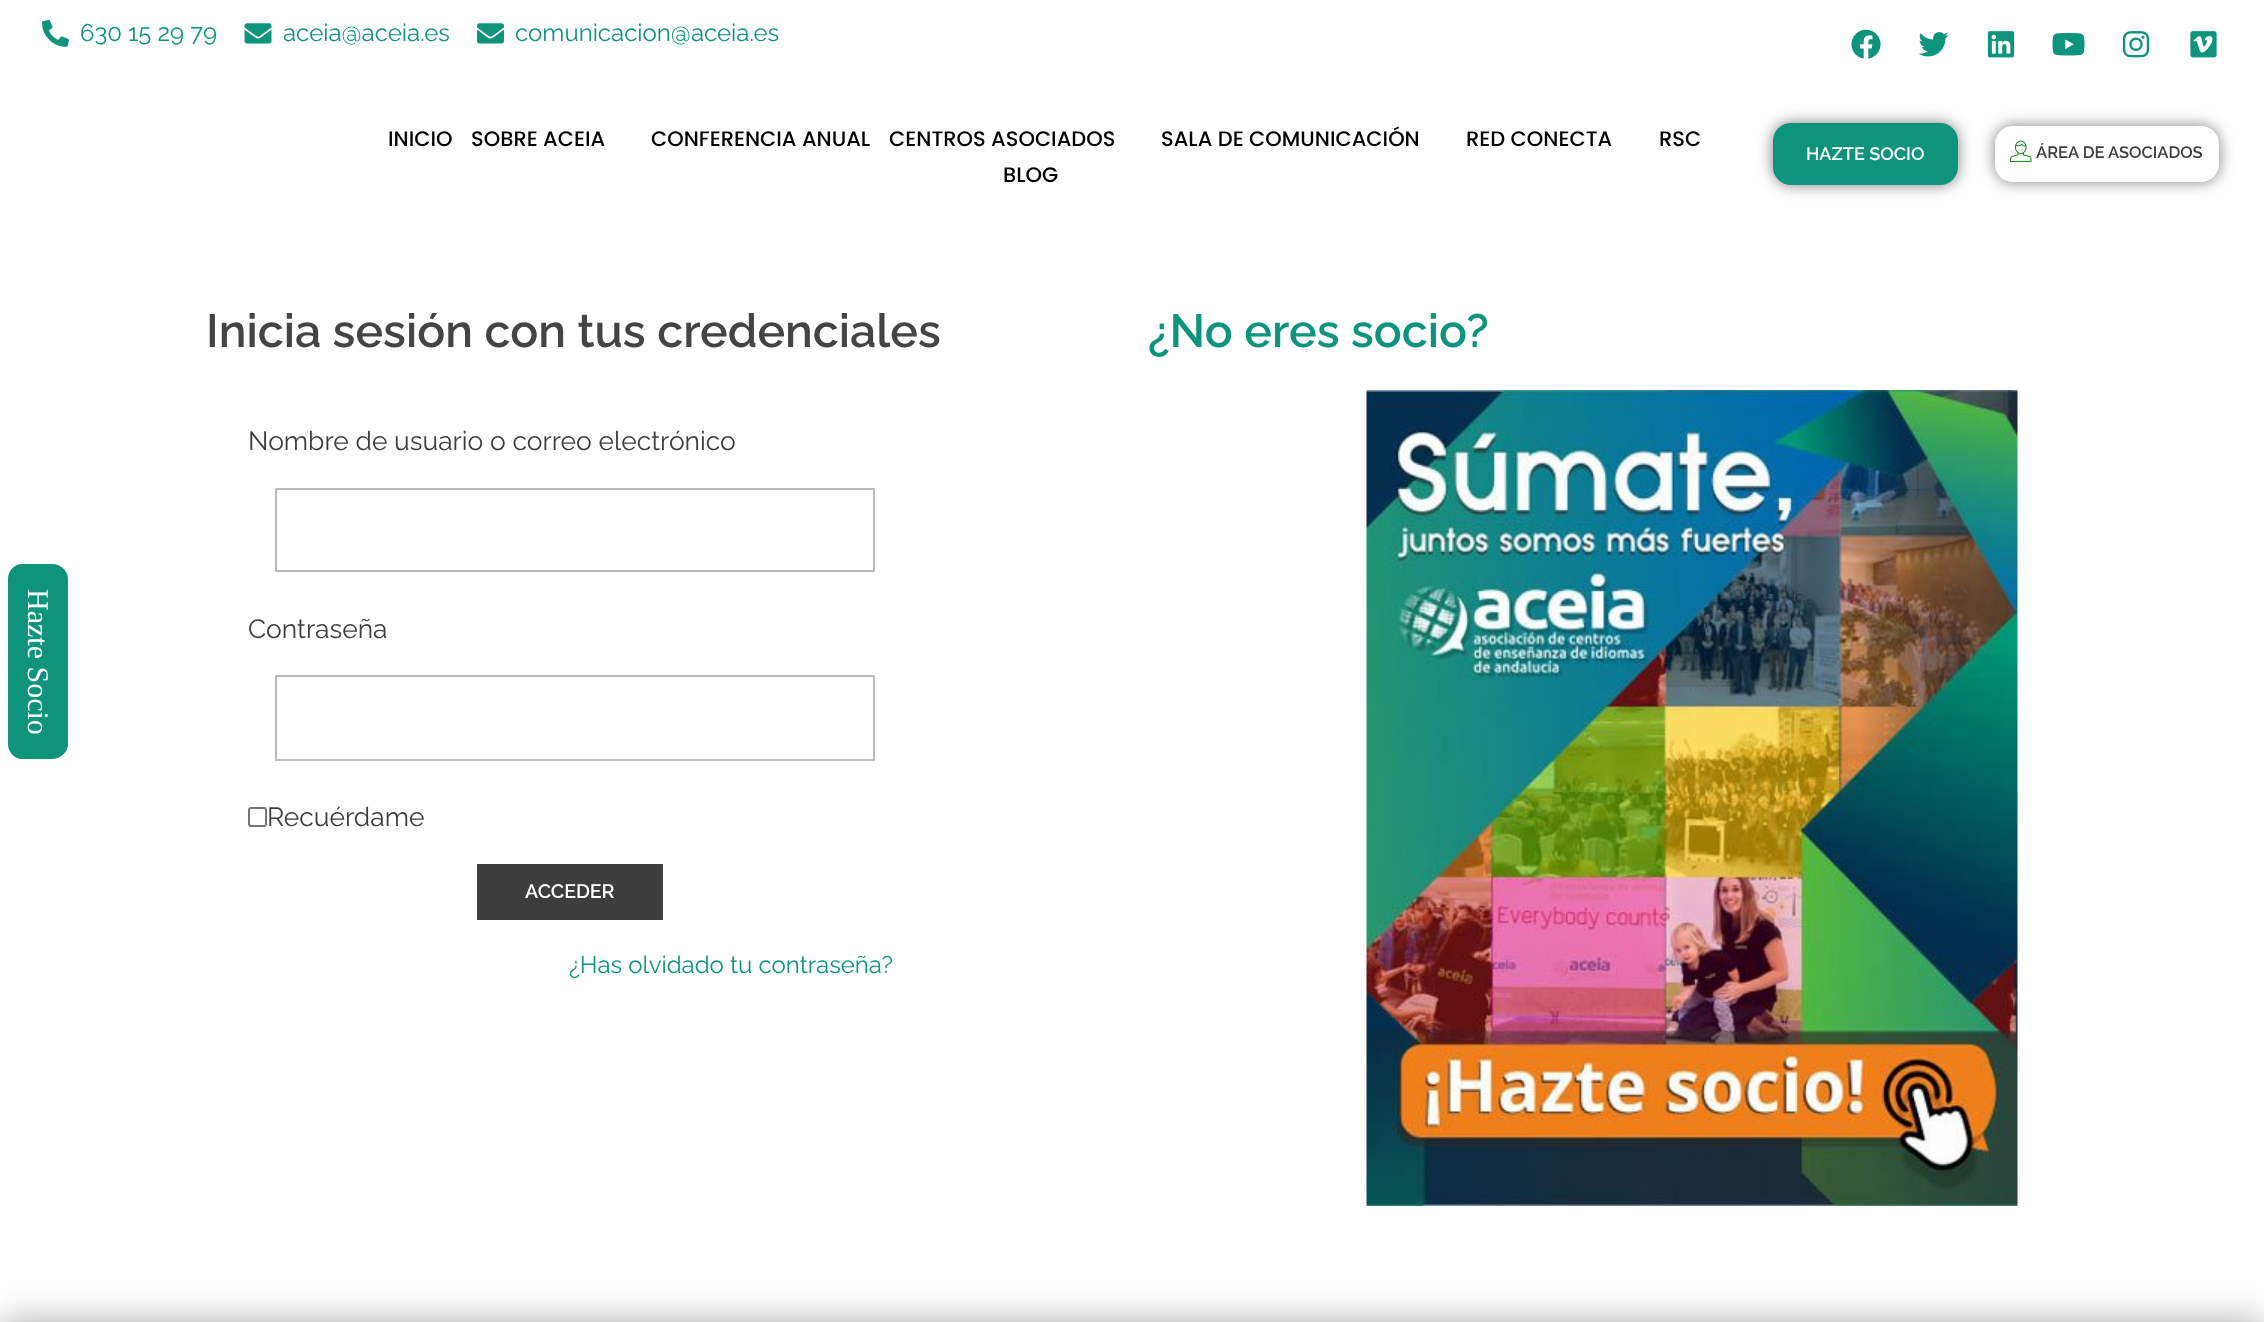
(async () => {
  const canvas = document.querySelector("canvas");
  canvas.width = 2264;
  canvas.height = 1322;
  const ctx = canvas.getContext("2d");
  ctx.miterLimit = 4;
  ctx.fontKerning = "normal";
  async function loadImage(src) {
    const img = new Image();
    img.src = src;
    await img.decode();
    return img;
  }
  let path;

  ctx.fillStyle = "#ffffff";
  ctx.fillRect(0, 0, 2264, 1322);
  ctx.fillStyle = "#0e947d";
  path = new Path2D("M68 579V744C68 752 61 759 52 759H22C14 759 8 752 8 744V579C8 571 14 564 22 564H52C61 564 68 571 68 579Z");
  ctx.fill(path);
  ctx.drawImage(await loadImage("img/1.png"), 42, 19, 27, 28);
  ctx.drawImage(await loadImage("img/2.png"), 244, 23, 28, 21);
  ctx.drawImage(await loadImage("img/3.png"), 477, 23, 27, 21);
  ctx.drawImage(await loadImage("img/4.png"), 1851, 29, 30, 30);
  ctx.drawImage(await loadImage("img/5.png"), 1918, 32, 31, 25);
  ctx.drawImage(await loadImage("img/6.png"), 1987, 31, 28, 27);
  ctx.drawImage(await loadImage("img/7.png"), 2052, 33, 33, 23);
  ctx.drawImage(await loadImage("img/8.png"), 2122, 31, 28, 27);
  ctx.drawImage(await loadImage("img/9.png"), 2190, 31, 27, 27);
  ctx.fillStyle = "rgba(0, 0, 0, 0.5)";
  ctx.filter = "blur(7.5px)";
  ctx.beginPath();
  ctx.roundRect(1773, 123, 185, 62, 18);
  ctx.fill();
  ctx.filter = "none";
  ctx.fillStyle = "#0e947d";
  ctx.beginPath();
  ctx.roundRect(1773, 123, 185, 62, 18);
  ctx.fill();
  ctx.save();
  path = new Path2D("M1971 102H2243V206H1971ZM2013 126H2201C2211 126 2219 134 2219 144V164C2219 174 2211 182 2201 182H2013C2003 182 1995 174 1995 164V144C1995 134 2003 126 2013 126Z");
  ctx.clip(path, "evenodd");
  ctx.fillStyle = "rgba(0, 0, 0, 0.5)";
  ctx.filter = "blur(7.5px)";
  ctx.beginPath();
  ctx.roundRect(1995, 126, 224, 56, 18);
  ctx.fill();
  ctx.filter = "none";
  ctx.restore();
  ctx.drawImage(await loadImage("img/10.png"), 2010, 140, 22, 22);
  ctx.strokeStyle = "#bbbbbb";
  ctx.lineWidth = 2;
  ctx.strokeRect(276, 489, 598, 82);
  ctx.strokeRect(276, 676, 598, 84);
  ctx.beginPath();
  ctx.roundRect(249, 808, 17, 18, 2);
  ctx.strokeStyle = "#767676";
  ctx.stroke();
  ctx.fillStyle = "#3d3d3d";
  ctx.fillRect(477, 864, 186, 56);
  ctx.drawImage(await loadImage("img/11.png"), 1366, 390, 652, 816);
  ctx.fillStyle = "rgba(0, 0, 0, 0.25)";
  ctx.filter = "blur(15px)";
  ctx.beginPath();
  ctx.roundRect(0, 1317, 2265, 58, 8);
  ctx.fill();
  ctx.filter = "none";
  ctx.font = "30px Liberation Serif";
  ctx.fillStyle = "#ffffff";
  ctx.save();
  ctx.translate(28, 589);
  ctx.rotate(90 * Math.PI / 180);
  ctx.fillText("Hazte Socio", 0, 0);
  ctx.restore();
  ctx.font = "24px Raleway";
  ctx.fillStyle = "#0e947d";
  for (const [text, x, y] of [
    ["630 15 29 79", 80, 41],
    ["aceia@aceia.es", 283, 41],
    ["comunicacion@aceia.es", 515, 41],
  ]) {
    ctx.fillText(text, x, y);
  }
  ctx.font = "500 21px Poppins";
  ctx.fillStyle = "#000000";
  for (const [text, x, y] of [
    ["INICIO", 388, 146],
    ["SOBRE ACEIA", 471, 146],
    ["CONFERENCIA ANUAL", 651, 146],
    ["CENTROS ASOCIADOS", 889, 146],
    ["SALA DE COMUNICACIÓN", 1161, 146],
    ["RED CONECTA", 1466, 146],
    ["RSC", 1659, 146],
    ["BLOG", 1003, 182],
  ]) {
    ctx.fillText(text, x, y);
  }
  ctx.font = "600 18px Raleway";
  ctx.fillStyle = "#ffffff";
  ctx.fillText("HAZTE SOCIO", 1806, 160);
  ctx.font = "600 16.5px Raleway";
  ctx.fillStyle = "#3d3d3d";
  ctx.fillText("ÁREA DE ASOCIADOS", 2036, 158);
  ctx.font = "600 46.5px Raleway";
  ctx.fillStyle = "#444444";
  ctx.fillText("Inicia sesión con tus credenciales", 206, 347);
  ctx.font = "26.4px Raleway";
  ctx.fillStyle = "#3d3d3d";
  for (const [text, x, y] of [
    ["Nombre de usuario o correo electrónico", 248, 450],
    ["Contraseña", 248, 638],
    ["Recuérdame", 267, 826],
  ]) {
    ctx.fillText(text, x, y);
  }
  ctx.font = "600 19.5px Raleway";
  ctx.fillStyle = "#ffffff";
  ctx.fillText("ACCEDER", 525, 898);
  ctx.font = "24px Raleway";
  ctx.fillStyle = "#0e947d";
  ctx.fillText("¿Has olvidado tu contraseña?", 569, 973);
  ctx.font = "600 46.5px Raleway";
  ctx.fillText("¿No eres socio?", 1148, 347);
})();
